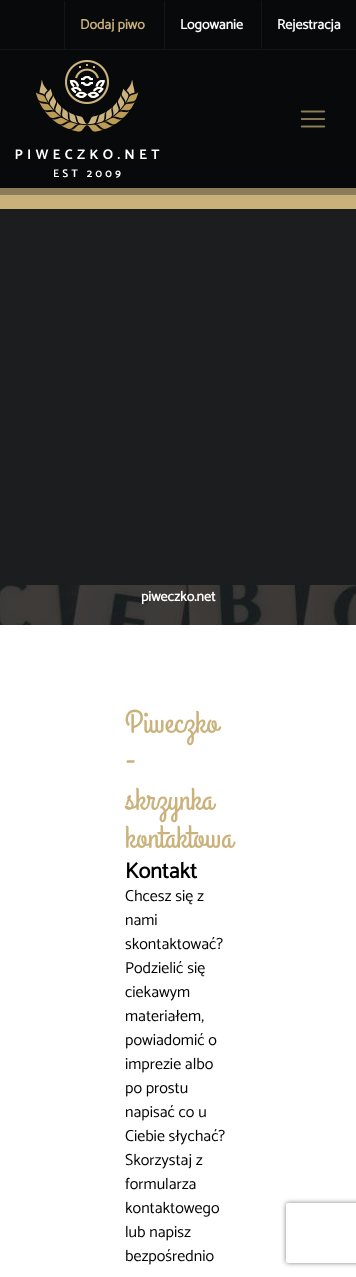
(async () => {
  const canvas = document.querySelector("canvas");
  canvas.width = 356;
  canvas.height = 1277;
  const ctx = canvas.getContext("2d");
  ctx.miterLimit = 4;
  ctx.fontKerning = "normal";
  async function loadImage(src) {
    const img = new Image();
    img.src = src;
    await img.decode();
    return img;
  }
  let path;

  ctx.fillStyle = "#1b1d1e";
  ctx.fillRect(0, 0, 356, 1277);
  for (const [x, y, w, h, color] of [
    [0, 0, 356, 188, "#07090a"],
    [0, 49, 356, 1, "#131516"],
    [64, 1, 1, 48, "#131516"],
    [164, 1, 1, 48, "#131516"],
    [261, 1, 1, 48, "#131516"],
  ]) {
    ctx.fillStyle = color;
    ctx.fillRect(x, y, w, h);
  }
  ctx.drawImage(await loadImage("img/1.png"), 15, 60, 145, 118);
  ctx.drawImage(await loadImage("img/2.png"), 300, 110, 26, 18);
  ctx.fillStyle = "#8c7c59";
  ctx.fillRect(0, 188, 356, 7);
  ctx.fillStyle = "#cab17c";
  ctx.fillRect(0, 195, 356, 14);
  ctx.drawImage(await loadImage("img/3.png"), 0, 585, 356, 40);
  ctx.fillStyle = "#ffffff";
  ctx.fillRect(0, 625, 356, 652);
  ctx.save();
  path = new Path2D("M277 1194H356V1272H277ZM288 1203H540C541 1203 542 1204 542 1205V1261C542 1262 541 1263 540 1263H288C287 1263 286 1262 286 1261V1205C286 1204 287 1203 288 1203Z");
  ctx.clip(path, "evenodd");
  ctx.fillStyle = "#808080";
  ctx.filter = "blur(2.5px)";
  ctx.beginPath();
  ctx.roundRect(286, 1203, 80, 60, 2);
  ctx.fill();
  ctx.filter = "none";
  ctx.restore();
  ctx.font = "bold 14px Catamaran";
  ctx.fillStyle = "#cbb27c";
  ctx.fillText("Dodaj piwo", 80, 29);
  ctx.fillStyle = "#ffffff";
  for (const [text, x, y] of [
    ["Logowanie", 180, 29],
    ["Rejestracja", 277, 29],
    ["piweczko.net", 141, 601],
  ]) {
    ctx.fillText(text, x, y);
  }
  ctx.font = "32px Grand Hotel";
  ctx.fillStyle = "#cbb27c";
  for (const [text, x, y] of [
    ["Piweczko", 125, 732],
    ["-", 125, 770],
    ["skrzynka", 125, 809],
    ["kontaktowa", 125, 847],
  ]) {
    ctx.fillText(text, x, y);
  }
  ctx.font = "bold 22px Catamaran";
  ctx.fillStyle = "#000000";
  ctx.fillText("Kontakt", 125, 878);
  ctx.font = "100 16px Catamaran";
  for (const [text, x, y] of [
    ["Chcesz się z", 125, 901],
    ["nami", 125, 925],
    ["skontaktować?", 125, 949],
    ["Podzielić się", 125, 973],
    ["ciekawym", 125, 997],
    ["materiałem,", 125, 1021],
    ["powiadomić o", 125, 1045],
    ["imprezie albo", 125, 1069],
    ["po prostu", 125, 1093],
    ["napisać co u", 125, 1117],
    ["Ciebie słychać?", 125, 1141],
    ["Skorzystaj z", 125, 1165],
    ["formularza", 125, 1189],
    ["kontaktowego", 125, 1213],
    ["lub napisz", 125, 1237],
    ["bezpośrednio", 125, 1261],
  ]) {
    ctx.fillText(text, x, y);
  }
})();
